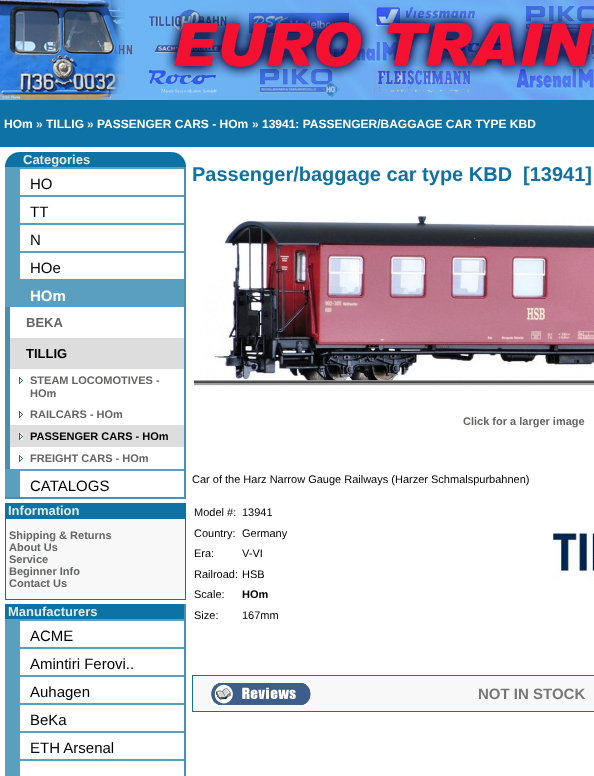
(async () => {
  const canvas = document.querySelector("canvas");
  canvas.width = 594;
  canvas.height = 776;
  const ctx = canvas.getContext("2d");
  ctx.miterLimit = 4;
  ctx.fontKerning = "normal";
  async function loadImage(src) {
    const img = new Image();
    img.src = src;
    await img.decode();
    return img;
  }

  ctx.fillStyle = "#ffffff";
  ctx.fillRect(0, 0, 594, 776);
  ctx.drawImage(await loadImage("img/1.png"), 0, 0, 594, 100);
  ctx.fillStyle = "#0e72a4";
  ctx.fillRect(0, 100, 594, 47);
  ctx.fillRect(5, 166, 15, 1);
  ctx.drawImage(await loadImage("img/2.png"), 5, 152, 15, 14);
  ctx.fillRect(20, 152, 151, 15);
  ctx.fillRect(171, 166, 15, 1);
  ctx.drawImage(await loadImage("img/3.png"), 171, 152, 15, 14);
  for (const [x, y, w, h, color] of [
    [184, 167, 2, 332, "#4a8eb0"],
    [5, 497, 181, 2, "#4a8eb0"],
    [20, 167, 164, 2, "#5a9ec0"],
    [5, 167, 15, 112, "#5a9ec0"],
    [20, 195, 164, 2, "#5a9ec0"],
    [20, 223, 164, 2, "#5a9ec0"],
    [20, 251, 164, 2, "#5a9ec0"],
    [5, 279, 179, 28, "#5a9ec0"],
    [5, 307, 5, 162, "#4a8eb0"],
    [10, 338, 174, 31, "#dddddd"],
  ]) {
    ctx.fillStyle = color;
    ctx.fillRect(x, y, w, h);
  }
  ctx.drawImage(await loadImage("img/4.png"), 19, 377, 4, 7);
  ctx.drawImage(await loadImage("img/4.png"), 19, 411, 4, 7);
  ctx.fillRect(10, 425, 174, 22);
  ctx.drawImage(await loadImage("img/4.png"), 19, 433, 4, 7);
  ctx.drawImage(await loadImage("img/4.png"), 19, 455, 4, 7);
  for (const [x, y, w, h, color] of [
    [20, 469, 164, 2, "#5a9ec0"],
    [5, 469, 15, 28, "#5a9ec0"],
    [5, 503, 181, 97, "#0e72a4"],
    [6, 519, 179, 80, "#f8f8f9"],
    [184, 604, 2, 172, "#4a8eb0"],
    [5, 604, 179, 15, "#0e72a4"],
    [20, 619, 164, 2, "#5a9ec0"],
    [5, 619, 15, 157, "#5a9ec0"],
    [20, 647, 164, 2, "#5a9ec0"],
    [20, 675, 164, 2, "#5a9ec0"],
    [20, 703, 164, 2, "#5a9ec0"],
    [20, 731, 164, 2, "#5a9ec0"],
    [20, 759, 164, 2, "#5a9ec0"],
  ]) {
    ctx.fillStyle = color;
    ctx.fillRect(x, y, w, h);
  }
  ctx.drawImage(await loadImage("img/5.png"), 194, 214, 400, 176);
  ctx.drawImage(await loadImage("img/6.png"), 553, 532, 41, 49);
  ctx.fillStyle = "#0e72a4";
  ctx.fillRect(192, 675, 402, 37);
  ctx.fillStyle = "#f8f8f9";
  ctx.fillRect(193, 676, 401, 35);
  ctx.drawImage(await loadImage("img/7.png"), 211, 683, 100, 22);
  ctx.font = "bold 12px Liberation Sans";
  ctx.fillStyle = "#ffffff";
  ctx.fillText("HOm", 4, 128);
  ctx.fillStyle = "#e1eaef";
  ctx.fillText("»", 36, 128);
  ctx.fillStyle = "#ffffff";
  ctx.fillText("TILLIG", 46, 128);
  ctx.fillStyle = "#e1eaef";
  ctx.fillText("»", 87, 128);
  ctx.fillStyle = "#ffffff";
  ctx.fillText("PASSENGER CARS - HOm", 97, 128);
  ctx.fillStyle = "#e1eaef";
  ctx.fillText("»", 252, 128);
  ctx.fillStyle = "#ffffff";
  ctx.fillText("13941: PASSENGER/BAGGAGE CAR TYPE KBD", 262, 128);
  ctx.font = "bold 13px Liberation Sans";
  ctx.fillStyle = "#e1eaef";
  ctx.fillText("Categories", 23, 164);
  ctx.font = "15px Liberation Sans";
  ctx.fillStyle = "#000000";
  for (const [text, x, y] of [
    ["HO", 30, 189],
    ["TT", 30, 217],
    ["N", 30, 245],
    ["HOe", 30, 273],
  ]) {
    ctx.fillText(text, x, y);
  }
  ctx.font = "bold 15px Liberation Sans";
  ctx.fillStyle = "#ffffff";
  ctx.fillText("HOm", 30, 301);
  ctx.font = "bold 13px Liberation Sans";
  ctx.fillStyle = "#636563";
  ctx.fillText("BEKA", 26, 327);
  ctx.fillStyle = "#000000";
  ctx.fillText("TILLIG", 26, 358);
  ctx.font = "bold 11px Liberation Sans";
  ctx.fillStyle = "#636563";
  for (const [text, x, y] of [
    ["STEAM LOCOMOTIVES -", 30, 384],
    ["HOm", 30, 397],
    ["RAILCARS - HOm", 30, 418],
  ]) {
    ctx.fillText(text, x, y);
  }
  ctx.fillStyle = "#000000";
  ctx.fillText("PASSENGER CARS - HOm", 30, 440);
  ctx.fillStyle = "#636563";
  ctx.fillText("FREIGHT CARS - HOm", 30, 462);
  ctx.font = "15px Liberation Sans";
  ctx.fillStyle = "#000000";
  ctx.fillText("CATALOGS", 30, 491);
  ctx.font = "bold 13px Liberation Sans";
  ctx.fillStyle = "#e1eaef";
  ctx.fillText("Information", 8, 515);
  ctx.font = "bold 11px Liberation Sans";
  ctx.fillStyle = "#636563";
  for (const [text, x, y] of [
    ["Shipping & Returns", 9, 539],
    ["About Us", 9, 551],
    ["Service", 9, 563],
    ["Beginner Info", 9, 575],
    ["Contact Us", 9, 587],
  ]) {
    ctx.fillText(text, x, y);
  }
  ctx.font = "bold 13px Liberation Sans";
  ctx.fillStyle = "#e1eaef";
  ctx.fillText("Manufacturers", 8, 616);
  ctx.font = "15px Liberation Sans";
  ctx.fillStyle = "#000000";
  for (const [text, x, y] of [
    ["ACME", 30, 641],
    ["Amintiri Ferovi..", 30, 669],
    ["Auhagen", 30, 697],
    ["BeKa", 30, 725],
    ["ETH Arsenal", 30, 753],
  ]) {
    ctx.fillText(text, x, y);
  }
  ctx.font = "bold 20px Liberation Sans";
  ctx.fillStyle = "#0e72a4";
  ctx.fillText("Passenger/baggage car type KBD", 192, 181);
  ctx.fillText("[13941]", 523, 181);
  ctx.font = "bold 11px Liberation Sans";
  ctx.fillStyle = "#636563";
  ctx.fillText("Click for a larger image", 463, 425);
  ctx.font = "11px Liberation Sans";
  ctx.fillStyle = "#000000";
  for (const [text, x, y] of [
    ["Car of the Harz Narrow Gauge Railways (Harzer Schmalspurbahnen)", 192, 483],
    ["Model #:", 194, 516],
    ["13941", 242, 516],
    ["Country:", 194, 537],
    ["Germany", 242, 537],
    ["Era:", 194, 557],
    ["V-VI", 242, 557],
    ["Railroad:", 194, 578],
    ["HSB", 242, 578],
    ["Scale:", 194, 598],
  ]) {
    ctx.fillText(text, x, y);
  }
  ctx.font = "bold 11px Liberation Sans";
  ctx.fillText("HOm", 242, 598);
  ctx.font = "11px Liberation Sans";
  ctx.fillText("Size:", 194, 619);
  ctx.fillText("167mm", 242, 619);
  ctx.font = "bold 15px Liberation Sans";
  ctx.fillStyle = "#777777";
  ctx.fillText("NOT IN STOCK", 478, 699);
})();
